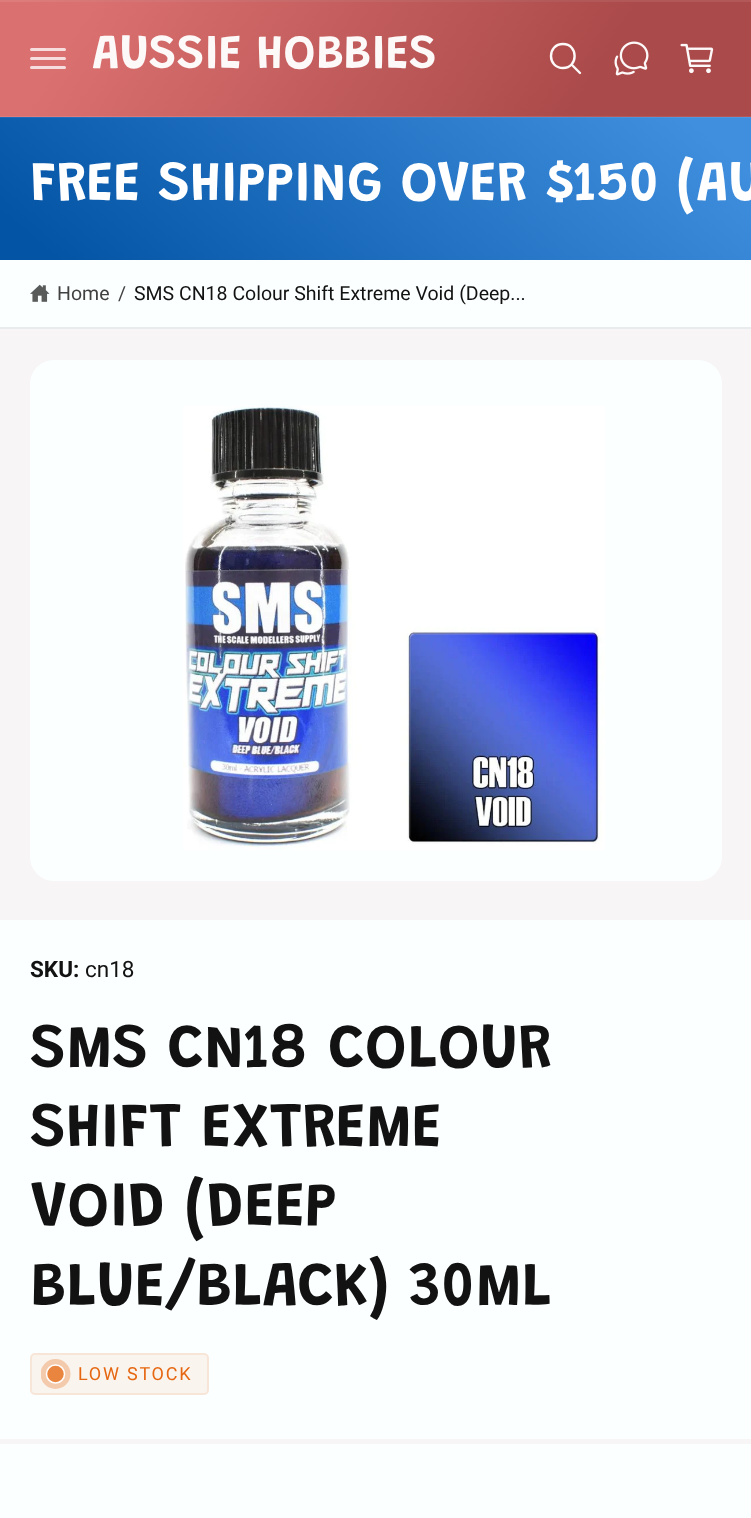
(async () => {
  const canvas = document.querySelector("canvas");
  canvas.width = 751;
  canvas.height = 1518;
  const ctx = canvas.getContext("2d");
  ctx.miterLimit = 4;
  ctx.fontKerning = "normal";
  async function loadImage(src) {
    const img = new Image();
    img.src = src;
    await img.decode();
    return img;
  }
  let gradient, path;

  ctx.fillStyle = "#f7f5f5";
  ctx.fillRect(0, 0, 751, 1518);
  gradient = ctx.createLinearGradient(75, -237, 677, 126);
  gradient.addColorStop(0.11, "#de7b7b");
  gradient.addColorStop(0.78, "#b25858");
  ctx.fillStyle = gradient;
  ctx.fillRect(0, 0, 751, 2);
  gradient = ctx.createLinearGradient(75, -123, 677, 240);
  gradient.addColorStop(0.11, "#db7070");
  gradient.addColorStop(0.78, "#ab4a4a");
  ctx.fillStyle = gradient;
  ctx.fillRect(0, 2, 751, 114);
  gradient = ctx.createLinearGradient(75, -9, 677, 354);
  gradient.addColorStop(0.11, "#de7b7b");
  gradient.addColorStop(0.78, "#b25858");
  ctx.fillStyle = gradient;
  ctx.fillRect(0, 116, 751, 1);
  path = new Path2D("M31.5 49.5H64.5M31.5 58.5H64.5M31.5 67.5H64.5");
  ctx.strokeStyle = "#f6dede";
  ctx.lineWidth = 3;
  ctx.lineCap = "round";
  ctx.stroke(path);
  path = new Path2D("M563 44C547 44 547 68 563 68C578.5 68 578.5 44 563 44Z");
  ctx.strokeStyle = "#fdf9f9";
  ctx.lineWidth = 2.4;
  ctx.lineCap = "butt";
  ctx.stroke(path);
  path = new Path2D("M572 65L580 73");
  ctx.lineCap = "round";
  ctx.stroke(path);
  ctx.drawImage(await loadImage("img/1.png"), 614, 41, 35, 35);
  ctx.drawImage(await loadImage("img/2.png"), 680, 43, 34, 31);
  gradient = ctx.createLinearGradient(566, -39, 185, 415);
  gradient.addColorStop(0.07, "#408fdf");
  gradient.addColorStop(0.94, "#0454a5");
  ctx.fillStyle = gradient;
  ctx.fillRect(0, 118, 751, 142);
  gradient = ctx.createLinearGradient(566, -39, 185, 415);
  gradient.addColorStop(0.07, "#4f97e1");
  gradient.addColorStop(0.94, "#1861ac");
  ctx.fillStyle = gradient;
  ctx.fillRect(0, 117, 751, 1);
  ctx.fillStyle = "#fcffff";
  ctx.fillRect(0, 260, 751, 67);
  ctx.fillStyle = "#e9ecec";
  ctx.fillRect(0, 327, 751, 2);
  ctx.drawImage(await loadImage("img/3.png"), 30, 284, 20, 18);
  ctx.fillStyle = "#fcffff";
  ctx.beginPath();
  ctx.roundRect(30, 360, 692, 521, 24);
  ctx.fill();
  ctx.drawImage(await loadImage("img/4.png"), 183, 406, 422, 444);
  ctx.fillRect(0, 920, 751, 598);
  ctx.fillStyle = "#faf4ee";
  ctx.beginPath();
  ctx.roundRect(30, 1353, 179, 42, 5);
  ctx.fill();
  ctx.beginPath();
  ctx.roundRect(31, 1354, 177, 40, 4);
  ctx.strokeStyle = "rgba(230, 103, 17, 0.1)";
  ctx.lineWidth = 2;
  ctx.stroke();
  ctx.save();
  ctx.beginPath();
  ctx.rect(41, 1359, 30, 30);
  ctx.clip();
  ctx.fillStyle = "#f4caac";
  ctx.beginPath();
  ctx.arc(55.5, 1374, 15, 0, Math.PI * 2);
  ctx.fill();
  ctx.restore();
  ctx.fillStyle = "#ea8540";
  ctx.beginPath();
  ctx.arc(55.5, 1374, 9, 0, Math.PI * 2);
  ctx.fill();
  ctx.strokeStyle = "#ffffff";
  ctx.lineWidth = 1.5;
  ctx.stroke();
  ctx.fillStyle = "#f7f5f5";
  ctx.fillRect(0, 1439, 751, 5);
  ctx.font = "600 48.5px Grandstander";
  ctx.fillStyle = "#fdf9f9";
  ctx.fillText("AUSSIE HOBBIES", 92, 68);
  ctx.letterSpacing = "0.1px";
  ctx.font = "600 56.25px Grandstander";
  ctx.fillStyle = "#ffffff";
  ctx.fillText("FREE SHIPPING OVER $150 (AU", 30, 200);
  ctx.letterSpacing = "0px";
  ctx.font = "19.5px Roboto";
  ctx.fillStyle = "#414141";
  ctx.fillText("Home", 57, 300);
  ctx.fillText("/", 118, 300);
  ctx.fillStyle = "#121212";
  ctx.fillText("SMS CN18 Colour Shift Extreme Void (Deep...", 134, 300);
  ctx.font = "bold 22.5px Roboto";
  ctx.fillText("SKU:", 30, 977);
  ctx.font = "22.5px Roboto";
  ctx.fillText("cn18", 85, 977);
  ctx.letterSpacing = "0.1px";
  ctx.font = "600 63px Grandstander";
  for (const [text, x, y] of [
    ["SMS CN18 COLOUR", 30, 1067],
    ["SHIFT EXTREME", 30, 1146],
    ["VOID (DEEP", 30, 1225],
    ["BLUE/BLACK) 30ML", 30, 1305],
  ]) {
    ctx.fillText(text, x, y);
  }
  ctx.letterSpacing = "1.75px";
  ctx.font = "18px Roboto";
  ctx.fillStyle = "#e66711";
  ctx.fillText("LOW STOCK", 78, 1380);
})();
